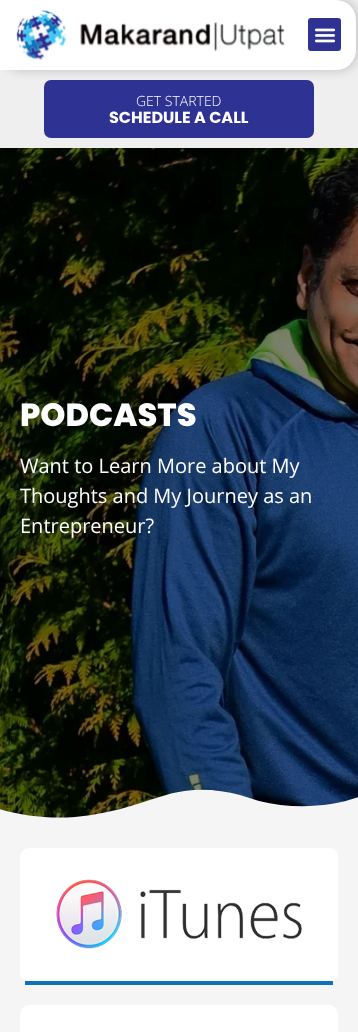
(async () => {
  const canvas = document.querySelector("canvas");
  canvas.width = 358;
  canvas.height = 1032;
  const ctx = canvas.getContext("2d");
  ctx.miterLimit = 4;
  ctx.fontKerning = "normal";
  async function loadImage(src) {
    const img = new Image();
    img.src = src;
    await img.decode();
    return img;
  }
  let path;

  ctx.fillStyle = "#ffffff";
  ctx.fillRect(0, 0, 358, 1032);
  ctx.fillStyle = "#efefef";
  ctx.fillRect(0, 0, 358, 148);
  ctx.fillStyle = "rgba(0, 0, 0, 0.2)";
  ctx.filter = "blur(5.5px)";
  ctx.beginPath();
  ctx.roundRect(2, 0, 356, 70, 20);
  ctx.fill();
  ctx.filter = "none";
  ctx.fillStyle = "#ffffff";
  ctx.beginPath();
  ctx.roundRect(0, 0, 356, 70, [0, 20, 20, 0]);
  ctx.fill();
  ctx.drawImage(await loadImage("img/1.png"), 16, 10, 269, 50);
  ctx.fillStyle = "#2e3292";
  ctx.beginPath();
  ctx.roundRect(308, 18, 33, 33, 3);
  ctx.fill();
  ctx.drawImage(await loadImage("img/2.png"), 314, 28, 22, 15);
  ctx.beginPath();
  ctx.roundRect(44, 80, 270, 58, 7);
  ctx.fill();
  ctx.drawImage(await loadImage("img/3.png"), 0, 148, 358, 670);
  ctx.fillStyle = "#f5f5f5";
  path = new Path2D("M75 817C95 815 115 811 134 805C154 799 173 791 194 790C209 789 225 791 240 795L259 801C291 809 328 808 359 797V819H-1V809C23 816 49 819 75 817Z");
  ctx.fill(path);
  ctx.fillRect(0, 819, 358, 213);
  ctx.fillStyle = "#ffffff";
  path = new Path2D("M30 848H328C334 848 338 852 338 858V975C338 978 334 981 328 981H30C24 981 20 978 20 975V858C20 852 24 848 30 848Z");
  ctx.fill(path);
  ctx.fillStyle = "#0b72bb";
  ctx.fillRect(25, 981, 308, 4);
  ctx.drawImage(await loadImage("img/4.png"), 56, 879, 247, 70);
  ctx.fillStyle = "#ffffff";
  path = new Path2D("M30 1005H328C334 1005 338 1009 338 1015V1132C338 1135 334 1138 328 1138H30C24 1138 20 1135 20 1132V1015C20 1009 24 1005 30 1005Z");
  ctx.fill(path);
  ctx.font = "300 14px Open Sans";
  ctx.fillText("GET STARTED", 136, 106);
  ctx.font = "bold 16px Poppins";
  ctx.fillText("SCHEDULE A CALL", 109, 123);
  ctx.font = "800 32px Poppins";
  ctx.fillText("PODCASTS", 20, 426);
  ctx.font = "20px Open Sans";
  for (const [text, x, y] of [
    ["Want to Learn More about My", 20, 473],
    ["Thoughts and My Journey as an", 20, 503],
    ["Entrepreneur?", 20, 533],
  ]) {
    ctx.fillText(text, x, y);
  }
})();
